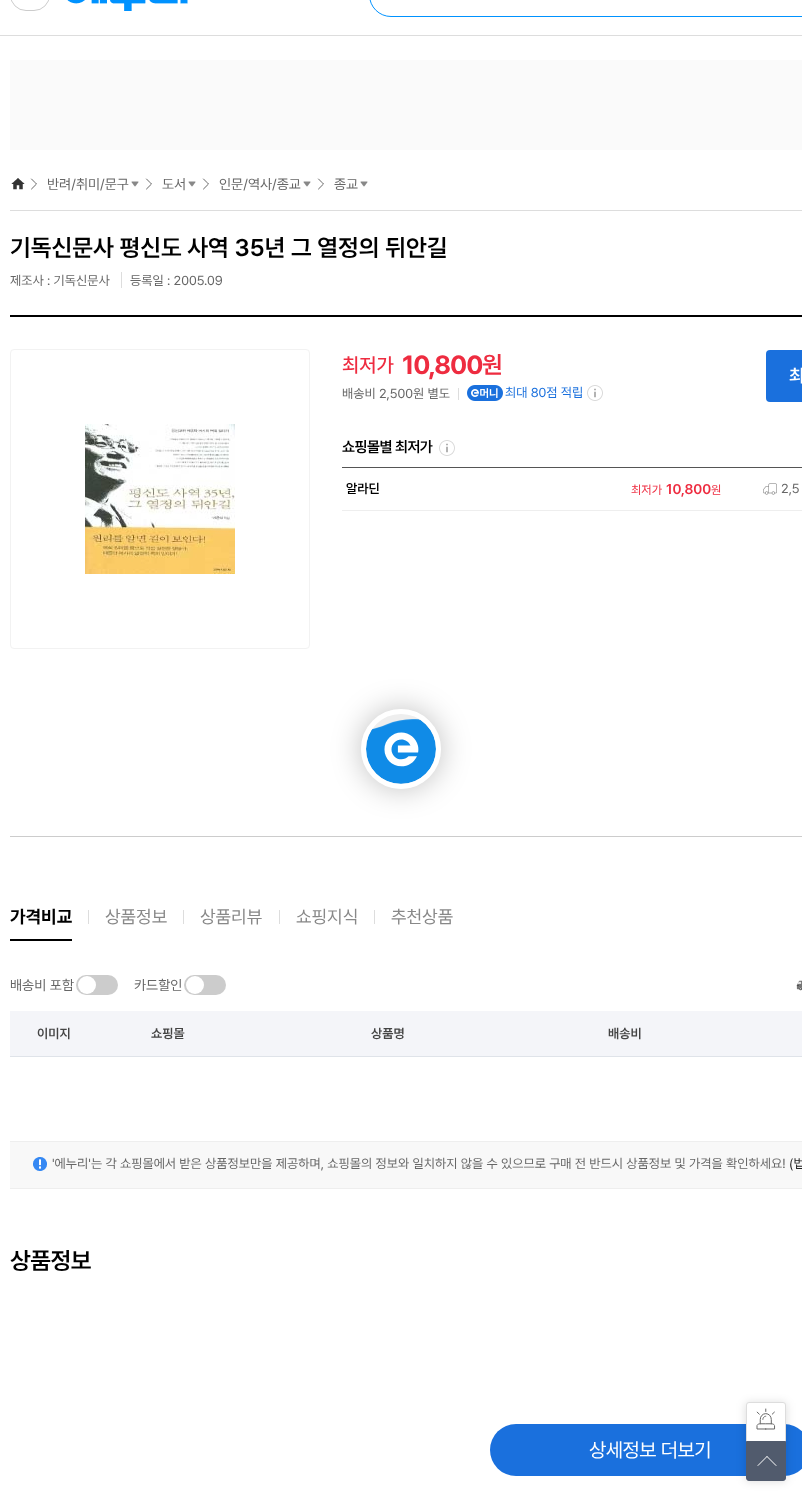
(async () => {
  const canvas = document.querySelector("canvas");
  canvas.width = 802;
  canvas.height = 1497;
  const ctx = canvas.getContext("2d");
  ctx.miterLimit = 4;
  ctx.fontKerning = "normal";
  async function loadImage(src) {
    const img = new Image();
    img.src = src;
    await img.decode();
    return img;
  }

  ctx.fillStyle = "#ffffff";
  ctx.fillRect(0, 0, 802, 1497);
  ctx.fillStyle = "#dddddd";
  ctx.fillRect(0, 35, 802, 1);
  ctx.beginPath();
  ctx.roundRect(10.5, -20.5, 39, 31, 19.5);
  ctx.strokeStyle = "#cccccc";
  ctx.stroke();
  ctx.drawImage(await loadImage("img/1.png"), 67, 0, 121, 11);
  ctx.beginPath();
  ctx.roundRect(369.5, -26.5, 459, 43, 25.5);
  ctx.strokeStyle = "#0092ff";
  ctx.stroke();
  ctx.fillStyle = "#fafafa";
  ctx.fillRect(10, 60, 792, 90);
  ctx.fillStyle = "#dddddd";
  ctx.fillRect(10, 210, 792, 1);
  ctx.drawImage(await loadImage("img/2.png"), 11, 178, 14, 12);
  ctx.drawImage(await loadImage("img/3.png"), 30, 178, 7, 12);
  ctx.drawImage(await loadImage("img/4.png"), 131, 181, 8, 6);
  ctx.drawImage(await loadImage("img/3.png"), 145, 178, 7, 12);
  ctx.drawImage(await loadImage("img/4.png"), 188, 181, 8, 6);
  ctx.drawImage(await loadImage("img/3.png"), 202, 178, 7, 12);
  ctx.drawImage(await loadImage("img/4.png"), 303, 181, 8, 6);
  ctx.drawImage(await loadImage("img/3.png"), 317, 178, 7, 12);
  ctx.drawImage(await loadImage("img/4.png"), 360, 181, 8, 6);
  for (const [x, y, w, h, color] of [
    [10, 315, 792, 2, "#000000"],
    [121, 272, 1, 16, "#dddddd"],
    [10, 836, 792, 1, "#cccccc"],
  ]) {
    ctx.fillStyle = color;
    ctx.fillRect(x, y, w, h);
  }
  ctx.drawImage(await loadImage("img/5.png"), 85, 424, 150, 150);
  ctx.beginPath();
  ctx.roundRect(10.5, 349.5, 299, 299, 3.5);
  ctx.strokeStyle = "#f2f2f2";
  ctx.stroke();
  ctx.fillStyle = "#dddddd";
  ctx.fillRect(458, 388, 1, 12);
  ctx.drawImage(await loadImage("img/6.png"), 467, 385, 36, 16);
  ctx.drawImage(await loadImage("img/7.png"), 587, 385, 16, 16);
  ctx.fillStyle = "#1a70dd";
  ctx.beginPath();
  ctx.roundRect(766, 350, 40, 52, 4);
  ctx.fill();
  ctx.drawImage(await loadImage("img/7.png"), 439, 440, 16, 16);
  ctx.fillStyle = "#555555";
  ctx.fillRect(342, 467, 460, 1);
  ctx.fillStyle = "#eeeeee";
  ctx.fillRect(342, 510, 460, 1);
  ctx.drawImage(await loadImage("img/8.png"), 763, 483, 14, 12);
  for (const [x, y, w, h, color] of [
    [10, 939, 62, 2, "#000000"],
    [88, 910, 1, 14, "#dddddd"],
    [183, 910, 1, 14, "#dddddd"],
    [279, 910, 1, 14, "#dddddd"],
    [374, 910, 1, 14, "#dddddd"],
  ]) {
    ctx.fillStyle = color;
    ctx.fillRect(x, y, w, h);
  }
  ctx.fillStyle = "#cccccc";
  ctx.beginPath();
  ctx.roundRect(76, 975, 42, 20, 10);
  ctx.fill();
  ctx.fillStyle = "#ffffff";
  ctx.beginPath();
  ctx.arc(87, 985, 9, 0, Math.PI * 2);
  ctx.fill();
  ctx.fillStyle = "#cccccc";
  ctx.beginPath();
  ctx.roundRect(184, 975, 42, 20, 10);
  ctx.fill();
  ctx.fillStyle = "#ffffff";
  ctx.beginPath();
  ctx.arc(195, 985, 9, 0, Math.PI * 2);
  ctx.fill();
  ctx.drawImage(await loadImage("img/9.png"), 796, 980, 6, 11);
  for (const [x, y, w, h, color] of [
    [10, 1011, 792, 45, "#f4f5f9"],
    [10, 1056, 792, 1, "#dfe3e9"],
    [10, 1142, 792, 46, "#f8f8f8"],
    [10, 1141, 792, 1, "#eeeeee"],
    [10, 1188, 792, 1, "#eeeeee"],
  ]) {
    ctx.fillStyle = color;
    ctx.fillRect(x, y, w, h);
  }
  ctx.drawImage(await loadImage("img/10.png"), 33, 1157, 14, 14);
  ctx.fillStyle = "#1a70dd";
  ctx.beginPath();
  ctx.roundRect(490, 1424, 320, 52, 26);
  ctx.fill();
  ctx.fillStyle = "rgba(0, 0, 0, 0.15)";
  ctx.filter = "blur(5px)";
  ctx.beginPath();
  ctx.rect(746, 1403, 40, 78);
  ctx.fill();
  ctx.filter = "none";
  ctx.fillStyle = "#ffffff";
  ctx.beginPath();
  ctx.roundRect(746.5, 1402.5, 39, 39, [2.5, 2.5, 0, 0]);
  ctx.fill();
  ctx.strokeStyle = "#dddddd";
  ctx.stroke();
  ctx.drawImage(await loadImage("img/11.png"), 756, 1408, 20, 22);
  ctx.fillStyle = "#515b6d";
  ctx.beginPath();
  ctx.roundRect(746.5, 1441.5, 39, 39, [0, 0, 2.5, 2.5]);
  ctx.fill();
  ctx.strokeStyle = "#515b6d";
  ctx.stroke();
  ctx.drawImage(await loadImage("img/12.png"), 757, 1456, 20, 10);
  ctx.fillStyle = "rgba(0, 0, 0, 0.25)";
  ctx.filter = "blur(15px)";
  ctx.beginPath();
  ctx.roundRect(361, 709, 80, 80, 40);
  ctx.fill();
  ctx.filter = "none";
  ctx.fillStyle = "#eeeeee";
  ctx.beginPath();
  ctx.arc(401, 749, 40, 0, Math.PI * 2);
  ctx.fill();
  ctx.drawImage(await loadImage("img/13.png"), 366, 719, 70, 65);
  ctx.beginPath();
  ctx.arc(401, 749, 37.5, 0, Math.PI * 2);
  ctx.strokeStyle = "#ffffff";
  ctx.lineWidth = 5;
  ctx.stroke();
  ctx.font = "14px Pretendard";
  ctx.fillStyle = "#666666";
  for (const [text, x, y] of [
    ["반려/취미/문구", 47, 189],
    ["도서", 162, 189],
    ["인문/역사/종교", 219, 189],
    ["종교", 334, 189],
  ]) {
    ctx.fillText(text, x, y);
  }
  ctx.font = "600 24px Pretendard";
  ctx.fillStyle = "#000000";
  ctx.fillText("기독신문사 평신도 사역 35년 그 열정의 뒤안길", 10, 256);
  ctx.font = "13px Pretendard";
  ctx.fillStyle = "#666666";
  ctx.fillText("제조사 : 기독신문사", 10, 285);
  ctx.fillText("등록일 : 2005.09", 130, 285);
  ctx.font = "500 20px Pretendard";
  ctx.fillStyle = "#ee2c40";
  ctx.fillText("최저가", 342, 372);
  ctx.letterSpacing = "-1px";
  ctx.font = "bold 26px Pretendard";
  ctx.fillText("10,800", 402, 374);
  ctx.letterSpacing = "0px";
  ctx.font = "600 24px Pretendard";
  ctx.fillText("원", 482, 373);
  ctx.font = "13px Pretendard";
  ctx.fillStyle = "#666666";
  ctx.fillText("배송비 2,500원 별도", 342, 398);
  ctx.fillStyle = "#1a70dd";
  ctx.fillText("최대 80점 적립", 505, 397);
  ctx.font = "600 18px Pretendard";
  ctx.fillStyle = "#ffffff";
  ctx.fillText("최", 789, 382);
  ctx.letterSpacing = "-0.5px";
  ctx.font = "600 15px Pretendard";
  ctx.fillStyle = "#000000";
  ctx.fillText("쇼핑몰별 최저가", 342, 452);
  ctx.letterSpacing = "0px";
  ctx.font = "600 13px Pretendard";
  ctx.fillText("알라딘", 346, 493);
  ctx.font = "12px Pretendard";
  ctx.fillStyle = "#ee2c40";
  ctx.fillText("최저가", 631, 494);
  ctx.font = "600 14px Pretendard";
  ctx.fillText("10,800", 666, 494);
  ctx.font = "12px Pretendard";
  ctx.fillText("원", 711, 494);
  ctx.font = "13px Pretendard";
  ctx.fillStyle = "#666666";
  ctx.fillText("2,5", 781, 493);
  ctx.font = "bold 18px Pretendard";
  ctx.fillStyle = "#000000";
  ctx.fillText("가격비교", 10, 923);
  ctx.font = "18px Pretendard";
  ctx.fillStyle = "#888888";
  for (const [text, x, y] of [
    ["상품정보", 105, 923],
    ["상품리뷰", 200, 923],
    ["쇼핑지식", 296, 923],
    ["추천상품", 391, 923],
  ]) {
    ctx.fillText(text, x, y);
  }
  ctx.font = "14px Pretendard";
  ctx.fillStyle = "#666666";
  ctx.fillText("배송비 포함", 10, 990);
  ctx.fillText("카드할인", 134, 990);
  ctx.font = "600 13px Pretendard";
  ctx.fillStyle = "#444444";
  for (const [text, x, y] of [
    ["이미지", 37, 1038],
    ["쇼핑몰", 151, 1038],
    ["상품명", 371, 1038],
    ["배송비", 608, 1038],
  ]) {
    ctx.fillText(text, x, y);
  }
  ctx.font = "13px Pretendard";
  ctx.fillStyle = "#666666";
  ctx.fillText("'에누리'는 각 쇼핑몰에서 받은 상품정보만을 제공하며, 쇼핑몰의 정보와 일치하지 않을 수 있으므로 구매 전 반드시 상품정보 및 가격을 확인하세요!", 52, 1168);
  ctx.fillStyle = "#222222";
  ctx.fillText("(법", 789, 1168);
  ctx.letterSpacing = "-0.5px";
  ctx.font = "600 24px Pretendard";
  ctx.fillStyle = "#000000";
  ctx.fillText("상품정보", 10, 1269);
  ctx.font = "20px Pretendard";
  ctx.fillStyle = "#ffffff";
  ctx.fillText("상세정보 더보기", 589, 1457);
})();
